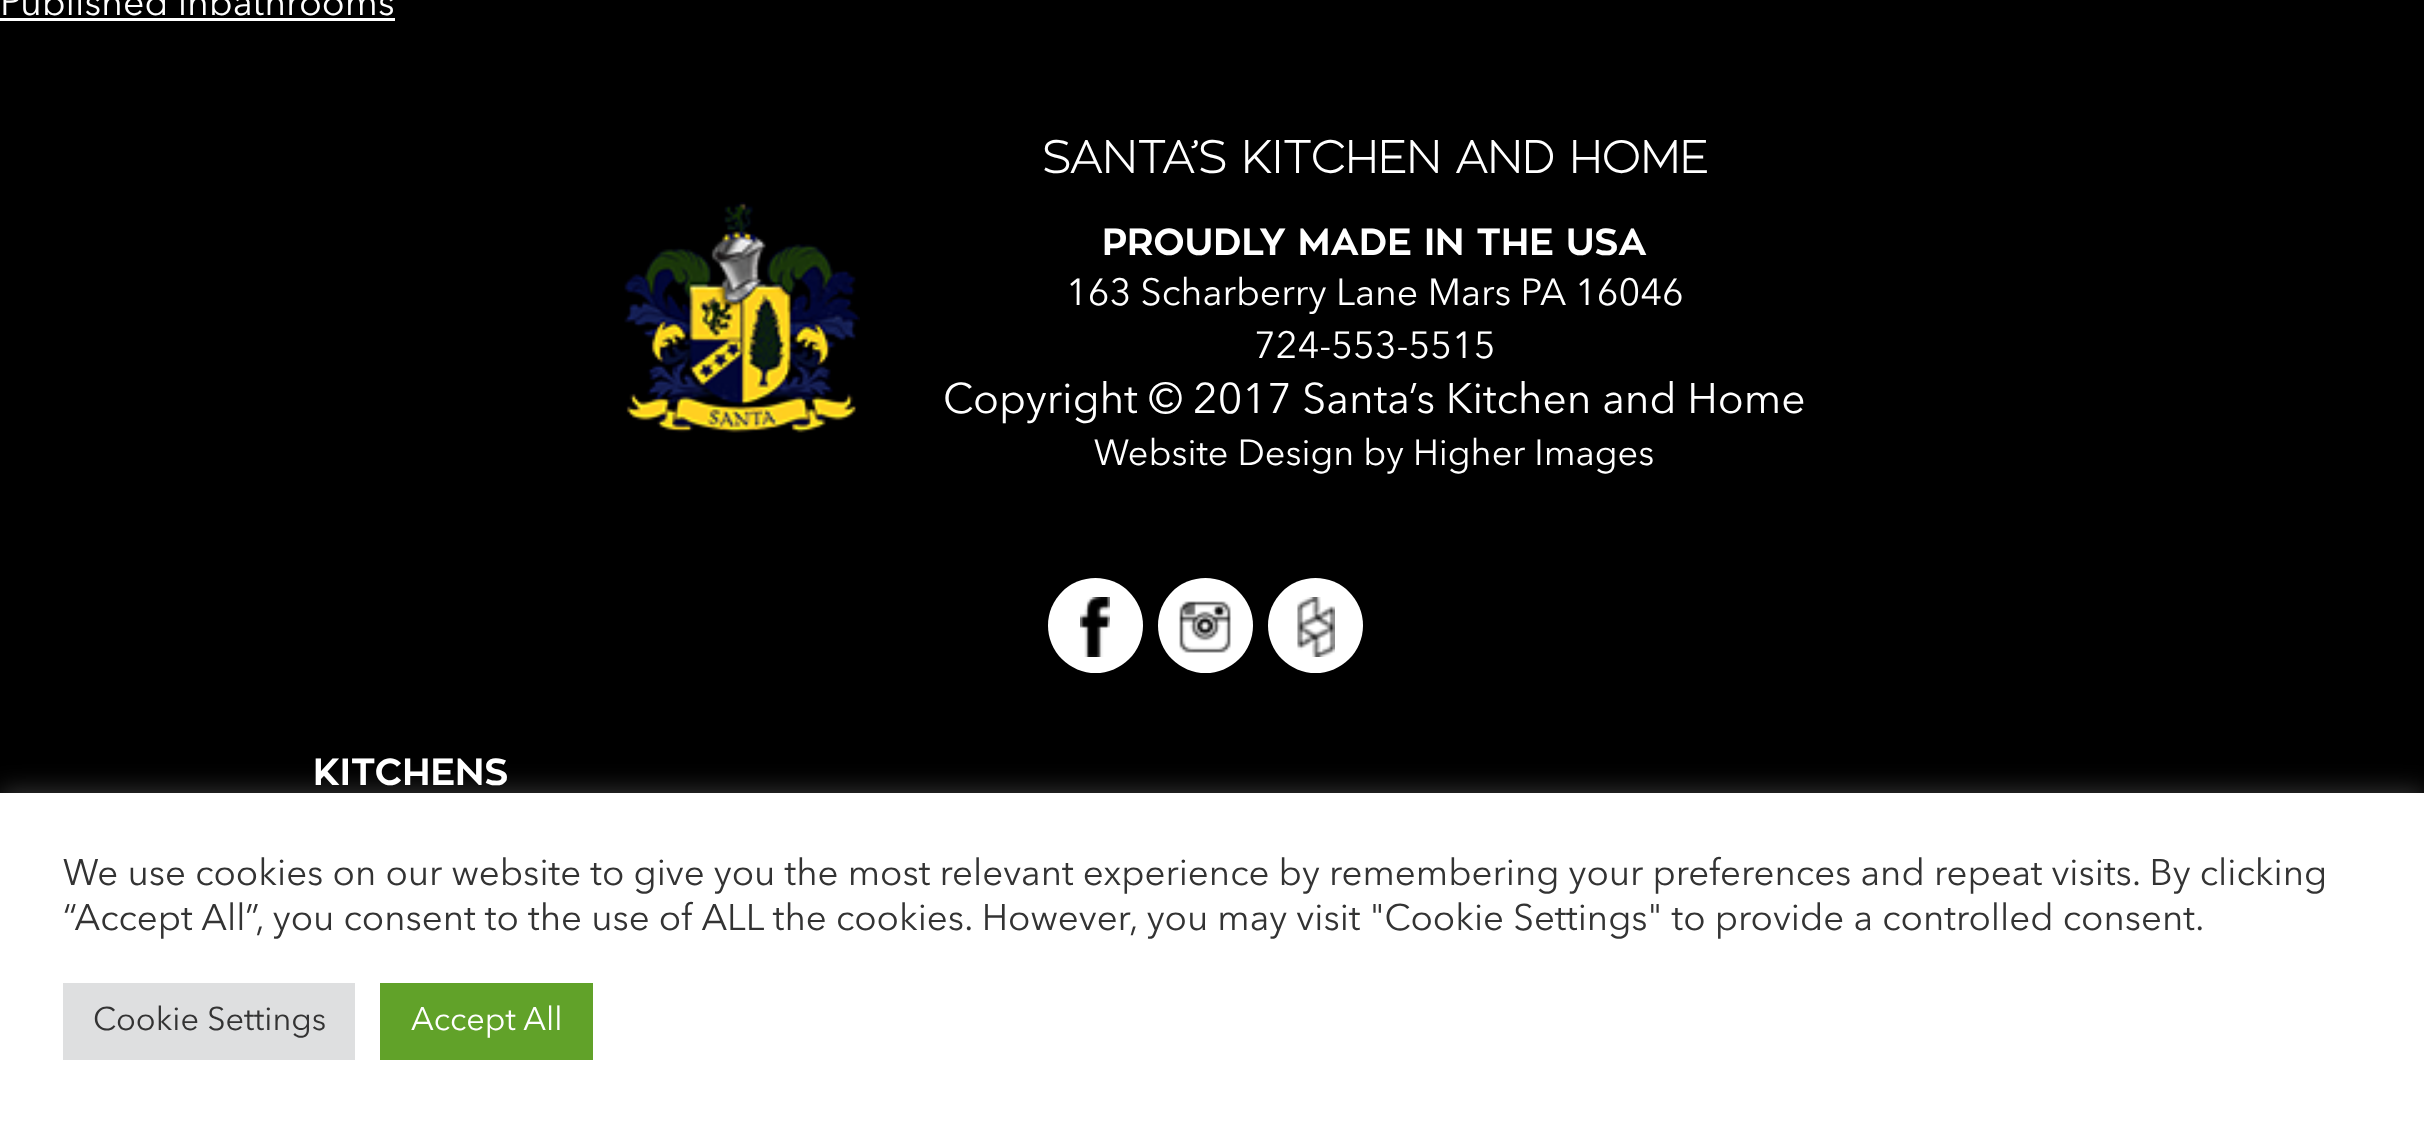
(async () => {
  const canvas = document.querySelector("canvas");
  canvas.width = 2424;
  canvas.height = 1134;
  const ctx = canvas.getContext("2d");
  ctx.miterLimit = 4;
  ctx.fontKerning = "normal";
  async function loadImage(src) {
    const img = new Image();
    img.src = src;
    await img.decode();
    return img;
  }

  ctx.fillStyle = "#000000";
  ctx.fillRect(0, 0, 2424, 1134);
  ctx.fillStyle = "#ffffff";
  ctx.fillRect(0, 18, 395, 3);
  ctx.drawImage(await loadImage("img/1.png"), 624, 202, 236, 231);
  ctx.beginPath();
  ctx.arc(1095.5, 625.5, 47.5, 0, Math.PI * 2);
  ctx.fill();
  ctx.drawImage(await loadImage("img/2.png"), 1080, 597, 30, 60);
  ctx.beginPath();
  ctx.arc(1205.5, 625.5, 47.5, 0, Math.PI * 2);
  ctx.fill();
  ctx.drawImage(await loadImage("img/3.png"), 1179, 601, 52, 52);
  ctx.beginPath();
  ctx.arc(1315.5, 625.5, 47.5, 0, Math.PI * 2);
  ctx.fill();
  ctx.drawImage(await loadImage("img/4.png"), 1297, 597, 38, 60);
  ctx.fillStyle = "rgba(172, 171, 171, 0.3)";
  ctx.filter = "blur(12.5px)";
  ctx.beginPath();
  ctx.rect(0, 790, 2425, 343);
  ctx.fill();
  ctx.filter = "none";
  for (const [x, y, w, h, color] of [
    [0, 793, 2424, 341, "#ffffff"],
    [63, 983, 292, 77, "#dedfe0"],
    [380, 983, 213, 77, "#61a229"],
  ]) {
    ctx.fillStyle = color;
    ctx.fillRect(x, y, w, h);
  }
  ctx.font = "37.5px Avenir Next";
  ctx.fillStyle = "#ffffff";
  ctx.fillText("Published inbathrooms", 0, 15);
  ctx.font = "bold 45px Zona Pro";
  ctx.fillText("SANTA’S KITCHEN AND HOME", 1042, 173);
  ctx.font = "bold 37.5px 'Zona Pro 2'";
  ctx.fillText("PROUDLY MADE IN THE USA", 1102, 255);
  ctx.font = "37.5px Avenir Next";
  ctx.fillText("163 Scharberry Lane Mars PA 16046", 1066, 305);
  ctx.fillText("724-553-5515", 1254, 358);
  ctx.font = "42.5px Avenir Next";
  ctx.fillText("Copyright © 2017 Santa’s Kitchen and Home", 943, 413);
  ctx.font = "36.1px Avenir Next";
  ctx.fillText("Website Design by Higher Images", 1094, 465);
  ctx.font = "bold 37.5px 'Zona Pro 2'";
  ctx.fillText("KITCHENS", 313, 785);
  ctx.font = "36.67px Avenir Next";
  ctx.fillStyle = "#333333";
  ctx.fillText("We use cookies on our website to give you the most relevant experience by remembering your preferences and repeat visits. By clicking", 63, 885);
  ctx.fillText("“Accept All”, you consent to the use of ALL the cookies. However, you may visit \"Cookie Settings\" to provide a controlled consent.", 63, 930);
  ctx.font = "32.5px Avenir Next";
  ctx.fillText("Cookie Settings", 93, 1030);
  ctx.fillStyle = "#ffffff";
  ctx.fillText("Accept All", 411, 1030);
})();
